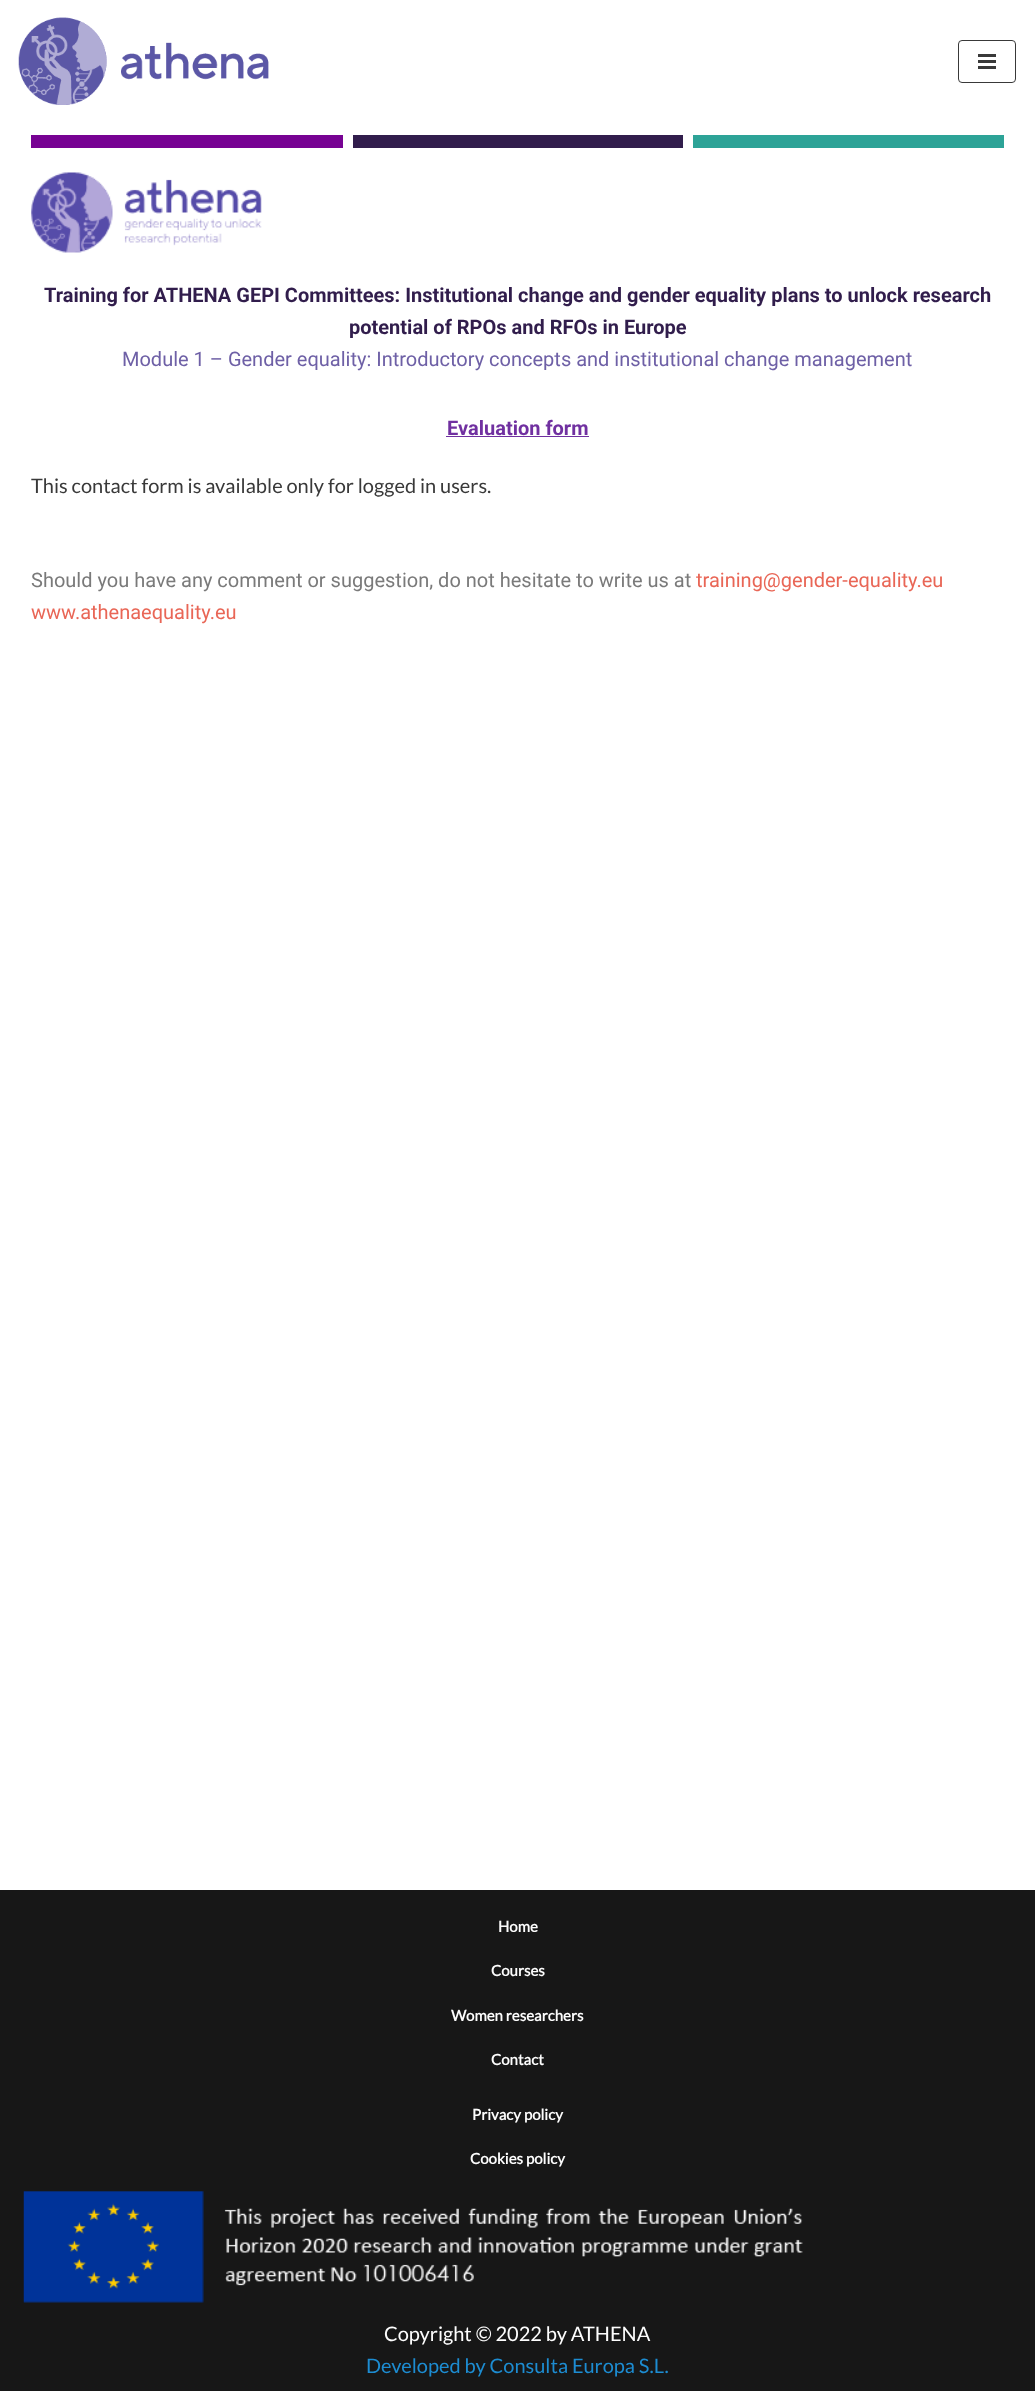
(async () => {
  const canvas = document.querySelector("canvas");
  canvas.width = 1035;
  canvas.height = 2391;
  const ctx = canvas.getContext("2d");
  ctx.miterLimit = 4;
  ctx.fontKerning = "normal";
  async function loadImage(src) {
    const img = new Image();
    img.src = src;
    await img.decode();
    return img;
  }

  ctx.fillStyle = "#ffffff";
  ctx.fillRect(0, 0, 1035, 2391);
  ctx.drawImage(await loadImage("img/1.png"), 18, 17, 251, 88);
  ctx.beginPath();
  ctx.roundRect(958.5, 40.5, 57, 42, 3.5);
  ctx.strokeStyle = "#393939";
  ctx.stroke();
  for (const [x, y, w, h, color] of [
    [978, 54, 18, 3, "#393939"],
    [978, 60, 18, 3, "#393939"],
    [978, 66, 18, 3, "#393939"],
    [31, 135, 312, 13, "#770293"],
    [353, 135, 330, 13, "#311d4c"],
    [693, 135, 311, 13, "#2da397"],
  ]) {
    ctx.fillStyle = color;
    ctx.fillRect(x, y, w, h);
  }
  ctx.drawImage(await loadImage("img/2.png"), 31, 172, 231, 81);
  ctx.fillStyle = "#7030a0";
  ctx.fillRect(446, 436, 143, 1);
  ctx.fillStyle = "#171717";
  ctx.fillRect(0, 1890, 1035, 501);
  ctx.drawImage(await loadImage("img/3.png"), 23, 2191, 780, 112);
  ctx.font = "bold 20px Roboto";
  ctx.fillStyle = "#311d4c";
  ctx.fillText("Training for ATHENA GEPI Committees: Institutional change and gender equality plans to unlock research", 44, 302);
  ctx.fillText("potential of RPOs and RFOs in Europe", 349, 334);
  ctx.font = "20px Roboto";
  ctx.fillStyle = "#6e60a6";
  ctx.fillText("Module 1 – Gender equality: Introductory concepts and institutional change management", 122, 366);
  ctx.font = "bold 20px Roboto";
  ctx.fillStyle = "#7030a0";
  ctx.fillText("Evaluation form", 447, 435);
  ctx.font = "20px Lato";
  ctx.fillStyle = "#393939";
  ctx.fillText("This contact form is available only for logged in users.", 31, 493);
  ctx.font = "20px Roboto";
  ctx.fillStyle = "#7a7a7a";
  ctx.fillText("Should you have any comment or suggestion, do not hesitate to write us at", 31, 587);
  ctx.fillStyle = "#e96656";
  ctx.fillText("training@gender-equality.eu", 696, 587);
  ctx.fillText("www.athenaequality.eu", 31, 619);
  ctx.font = "bold 15px Lato";
  ctx.fillStyle = "#fdfdfd";
  for (const [text, x, y] of [
    ["Home", 498, 1932],
    ["Courses", 491, 1976],
    ["Women researchers", 451, 2021],
    ["Contact", 491, 2065],
    ["Privacy policy", 472, 2120],
    ["Cookies policy", 470, 2164],
  ]) {
    ctx.fillText(text, x, y);
  }
  ctx.font = "20px Lato";
  ctx.fillText("Copyright © 2022 by ATHENA", 384, 2341);
  ctx.fillStyle = "#1d8cd1";
  ctx.fillText("Developed by Consulta Europa S.L.", 366, 2373);
})();
